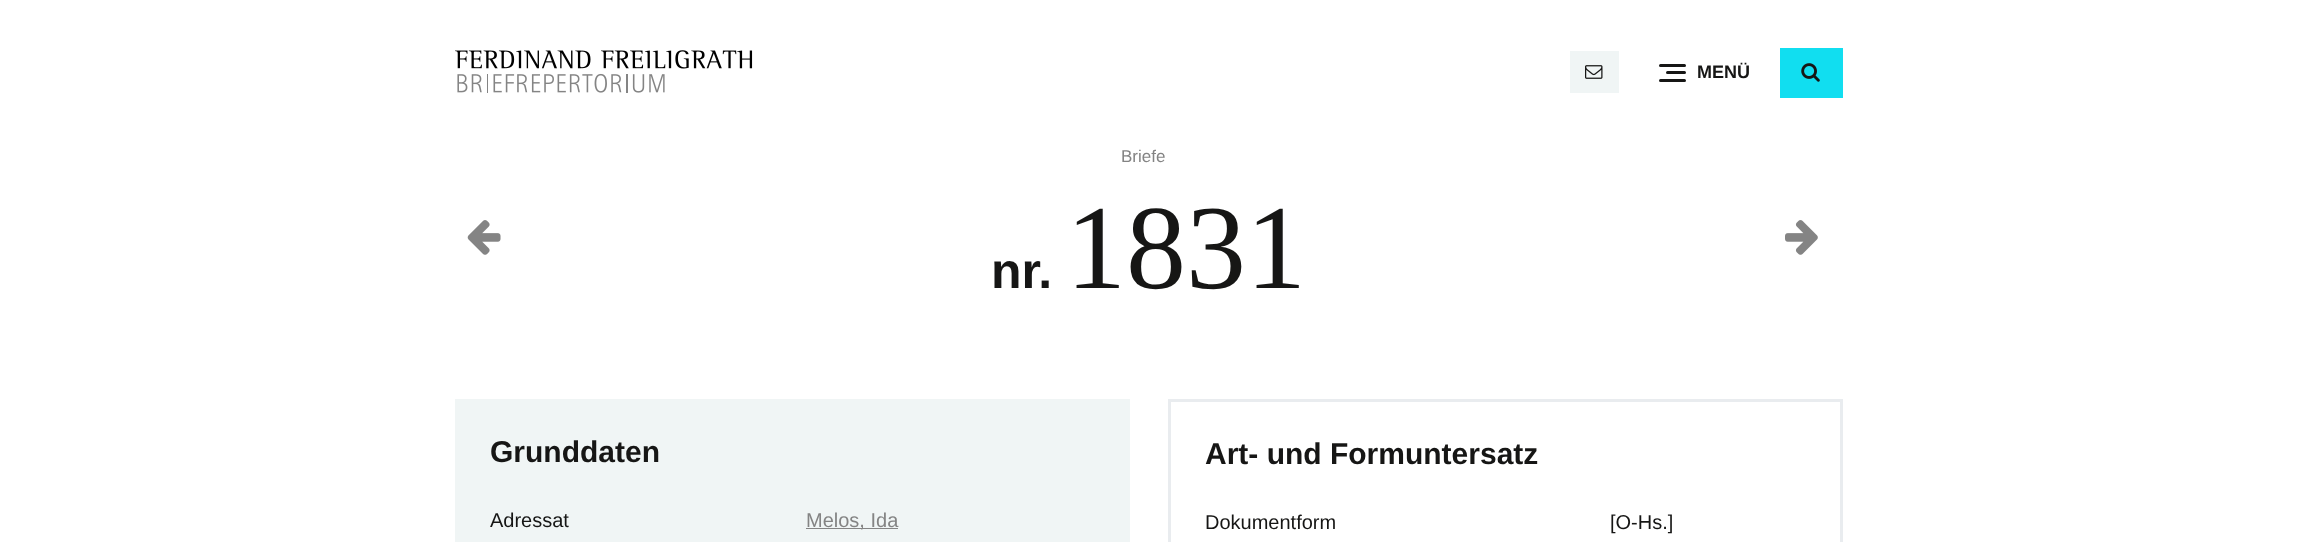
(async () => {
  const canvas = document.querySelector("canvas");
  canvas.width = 2297;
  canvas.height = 542;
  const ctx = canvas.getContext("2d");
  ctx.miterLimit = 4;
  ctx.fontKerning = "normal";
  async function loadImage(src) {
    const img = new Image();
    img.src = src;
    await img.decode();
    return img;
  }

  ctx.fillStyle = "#ffffff";
  ctx.fillRect(0, 0, 2297, 542);
  ctx.drawImage(await loadImage("img/1.png"), 455, 50, 298, 43);
  ctx.fillStyle = "#f0f5f5";
  ctx.fillRect(1570, 51, 49, 42);
  ctx.drawImage(await loadImage("img/2.png"), 1585, 65, 18, 14);
  ctx.fillStyle = "#161615";
  ctx.beginPath();
  ctx.roundRect(1659, 64, 27, 3, 1.5);
  ctx.fill();
  ctx.beginPath();
  ctx.roundRect(1666, 71, 20, 3, 1.5);
  ctx.fill();
  ctx.beginPath();
  ctx.roundRect(1659, 79, 27, 3, 1.5);
  ctx.fill();
  ctx.fillStyle = "#11def0";
  ctx.fillRect(1780, 48, 63, 50);
  ctx.drawImage(await loadImage("img/3.png"), 1801, 63, 19, 19);
  ctx.drawImage(await loadImage("img/4.png"), 467, 220, 34, 35);
  ctx.drawImage(await loadImage("img/5.png"), 1785, 220, 33, 35);
  ctx.fillStyle = "#f0f5f5";
  ctx.fillRect(455, 399, 675, 143);
  ctx.fillStyle = "#848484";
  ctx.fillRect(806, 528, 92, 1);
  ctx.strokeStyle = "#e9ecef";
  ctx.lineWidth = 3;
  ctx.strokeRect(1169.5, 400.5, 672, 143);
  ctx.font = "bold 18px Liberation Sans";
  ctx.fillStyle = "#161615";
  ctx.fillText("MENÜ", 1697, 78);
  ctx.font = "17px Liberation Sans";
  ctx.fillStyle = "#848484";
  ctx.fillText("Briefe", 1121, 162);
  ctx.font = "bold 50px Liberation Sans";
  ctx.fillStyle = "#161615";
  ctx.fillText("nr.", 991, 288);
  ctx.font = "120px Liberation Serif";
  ctx.fillText("1831", 1066, 288);
  ctx.font = "bold 30px Liberation Sans";
  ctx.fillText("Grunddaten", 490, 462);
  ctx.font = "20px Liberation Sans";
  ctx.fillText("Adressat", 490, 527);
  ctx.fillStyle = "#848484";
  ctx.fillText("Melos, Ida", 806, 527);
  ctx.font = "bold 30px Liberation Sans";
  ctx.fillStyle = "#161615";
  ctx.fillText("Art- und Formuntersatz", 1205, 464);
  ctx.font = "20px Liberation Sans";
  ctx.fillText("Dokumentform", 1205, 529);
  ctx.fillText("[O-Hs.]", 1610, 529);
})();
